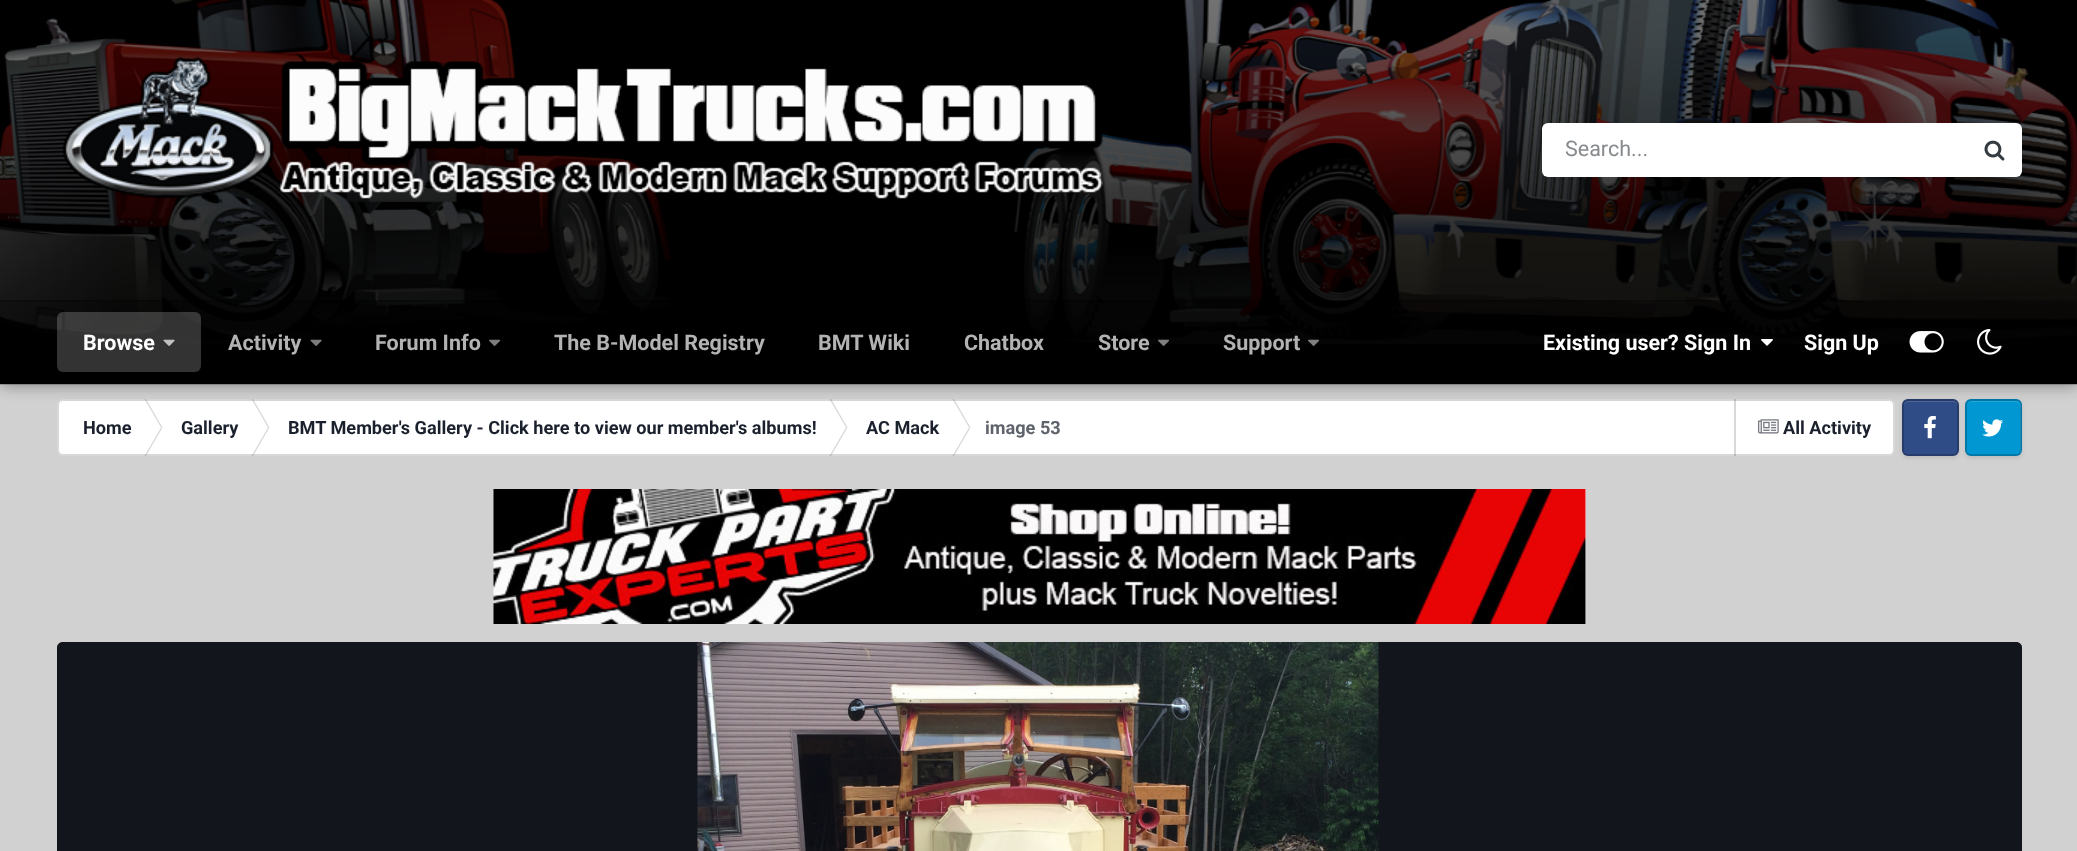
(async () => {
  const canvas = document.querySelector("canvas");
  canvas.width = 2077;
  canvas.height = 851;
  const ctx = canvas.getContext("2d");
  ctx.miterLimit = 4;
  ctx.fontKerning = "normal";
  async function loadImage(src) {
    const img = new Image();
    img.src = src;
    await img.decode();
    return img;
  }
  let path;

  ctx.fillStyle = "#d1d1d1";
  ctx.fillRect(0, 0, 2077, 851);
  ctx.fillStyle = "#ffffff";
  ctx.beginPath();
  ctx.roundRect(57, 399, 1838, 57, 6);
  ctx.fill();
  ctx.fillStyle = "#d7d8d9";
  path = new Path2D("M144.5 399H146L162.5 427.5H161Z");
  ctx.fill(path);
  path = new Path2D("M144.5 456H146L162.5 427.5H161Z");
  ctx.fill(path);
  path = new Path2D("M251.5 399H253L269.5 427.5H268Z");
  ctx.fill(path);
  path = new Path2D("M251.5 456H253L269.5 427.5H268Z");
  ctx.fill(path);
  path = new Path2D("M829.5 399H831L847.5 427.5H846Z");
  ctx.fill(path);
  path = new Path2D("M829.5 456H831L847.5 427.5H846Z");
  ctx.fill(path);
  path = new Path2D("M952.5 399H954L970.5 427.5H969Z");
  ctx.fill(path);
  path = new Path2D("M952.5 456H954L970.5 427.5H969Z");
  ctx.fill(path);
  ctx.fillRect(1734, 399, 2, 57);
  ctx.drawImage(await loadImage("img/12.png"), 1758, 419, 21, 15);
  ctx.beginPath();
  ctx.roundRect(58, 400, 1836, 55, 5);
  ctx.strokeStyle = "rgba(53, 60, 65, 0.2)";
  ctx.lineWidth = 2;
  ctx.stroke();
  ctx.fillStyle = "rgba(0, 0, 0, 0.1)";
  ctx.filter = "blur(2px)";
  ctx.beginPath();
  ctx.roundRect(1902, 401, 57, 57, 6);
  ctx.fill();
  ctx.filter = "none";
  ctx.fillStyle = "#304c87";
  ctx.beginPath();
  ctx.roundRect(1902, 399, 57, 57, 6);
  ctx.fill();
  ctx.fillStyle = "#4f6799";
  path = new Path2D("M1908 402C1906 402 1904 404 1904 406C1904 403 1906 401 1909 401H1953C1956 401 1958 403 1958 406C1958 404 1955 402 1953 402Z");
  ctx.fill(path);
  ctx.drawImage(await loadImage("img/13.png"), 1924, 415, 12, 24);
  ctx.beginPath();
  ctx.roundRect(1903, 400, 55, 55, 5);
  ctx.strokeStyle = "rgba(0, 0, 0, 0.2)";
  ctx.stroke();
  ctx.fillStyle = "rgba(0, 0, 0, 0.1)";
  ctx.filter = "blur(2px)";
  ctx.beginPath();
  ctx.roundRect(1965, 401, 57, 57, 6);
  ctx.fill();
  ctx.filter = "none";
  ctx.fillStyle = "#0097d3";
  ctx.beginPath();
  ctx.roundRect(1965, 399, 57, 57, 6);
  ctx.fill();
  ctx.drawImage(await loadImage("img/14.png"), 1982, 419, 21, 18);
  ctx.fillStyle = "#26a7da";
  path = new Path2D("M1971 402L1968 403C1969 402 1970 401 1972 401H2016C2019 401 2021 403 2021 406V450C2021 451 2021 452 2020 453V414C2020 411 2022 402 2016 402Z");
  ctx.fill(path);
  ctx.beginPath();
  ctx.roundRect(1966, 400, 55, 55, 5);
  ctx.stroke();
  ctx.fillStyle = "rgba(0, 0, 0, 0.35)";
  ctx.filter = "blur(7.5px)";
  ctx.beginPath();
  ctx.rect(0, 2, 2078, 384);
  ctx.fill();
  ctx.filter = "none";
  ctx.fillStyle = "#000000";
  ctx.fillRect(0, 0, 2077, 384);
  ctx.drawImage(await loadImage("img/1.png"), 0, 0, 2077, 344);
  ctx.drawImage(await loadImage("img/2.png"), 62, 56, 1041, 143);
  ctx.fillStyle = "#ffffff";
  ctx.beginPath();
  ctx.roundRect(1542, 123, 480, 54, 6);
  ctx.fill();
  ctx.drawImage(await loadImage("img/3.png"), 1984, 140, 21, 21);
  for (const [x, y, w, h, color] of [
    [0, 300, 2076, 30, "rgba(0, 0, 0, 0.2)"],
    [0, 300, 1866, 2, "rgba(0, 0, 0, 0.2)"],
    [0, 384, 2077, 1, "rgba(0, 0, 0, 0.2)"],
  ]) {
    ctx.fillStyle = color;
    ctx.fillRect(x, y, w, h);
  }
  ctx.fillStyle = "rgba(255, 255, 255, 0.2)";
  ctx.beginPath();
  ctx.roundRect(57, 312, 144, 60, 6);
  ctx.fill();
  ctx.drawImage(await loadImage("img/4.png"), 163, 339, 12, 7);
  ctx.drawImage(await loadImage("img/5.png"), 310, 339, 12, 7);
  ctx.drawImage(await loadImage("img/6.png"), 489, 339, 12, 7);
  ctx.drawImage(await loadImage("img/7.png"), 1158, 339, 12, 7);
  ctx.drawImage(await loadImage("img/8.png"), 1308, 339, 12, 7);
  ctx.drawImage(await loadImage("img/9.png"), 1761, 339, 12, 7);
  ctx.drawImage(await loadImage("img/10.png"), 1909, 331, 35, 22);
  ctx.drawImage(await loadImage("img/11.png"), 1977, 329, 25, 26);
  ctx.fillStyle = "#f7f7f7";
  ctx.fillRect(1585, 489, 1, 135);
  ctx.drawImage(await loadImage("img/15.png"), 493, 489, 1093, 135);
  ctx.fillStyle = "#2d3748";
  path = new Path2D("M63 642H2016C2019.5 642 2022 644.5 2022 648V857H57V648C57 644.5 59.5 642 63 642Z");
  ctx.fill(path);
  ctx.fillStyle = "rgba(0, 0, 0, 0.6)";
  path = new Path2D("M63 642H2016C2019.5 642 2022 644.5 2022 648V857H57V648C57 644.5 59.5 642 63 642Z");
  ctx.fill(path);
  ctx.drawImage(await loadImage("img/16.png"), 697, 642, 682, 209);
  ctx.font = "21.5px Roboto";
  ctx.fillStyle = "#868a8d";
  ctx.fillText("Search...", 1565, 156);
  ctx.font = "bold 21.5px Roboto";
  ctx.fillStyle = "#ffffff";
  ctx.fillText("Browse", 83, 350);
  ctx.fillStyle = "#b3b3b3";
  for (const [text, x, y] of [
    ["Activity", 228, 350],
    ["Forum Info", 375, 350],
    ["The B-Model Registry", 554, 350],
    ["BMT Wiki", 818, 350],
    ["Chatbox", 964, 350],
    ["Store", 1098, 350],
    ["Support", 1223, 350],
  ]) {
    ctx.fillText(text, x, y);
  }
  ctx.fillStyle = "#ffffff";
  ctx.fillText("Existing user? Sign In", 1543, 350);
  ctx.fillText("Sign Up", 1804, 350);
  ctx.font = "bold 18.15px Roboto";
  ctx.fillStyle = "#1a202c";
  for (const [text, x, y] of [
    ["Home", 83, 434],
    ["Gallery", 181, 434],
    ["BMT Member's Gallery - Click here to view our member's albums!", 288, 434],
    ["AC Mack", 866, 434],
  ]) {
    ctx.fillText(text, x, y);
  }
  ctx.fillStyle = "#5f636b";
  ctx.fillText("image 53", 985, 434);
  ctx.fillStyle = "#1a202c";
  ctx.fillText("All Activity", 1783, 434);
})();
